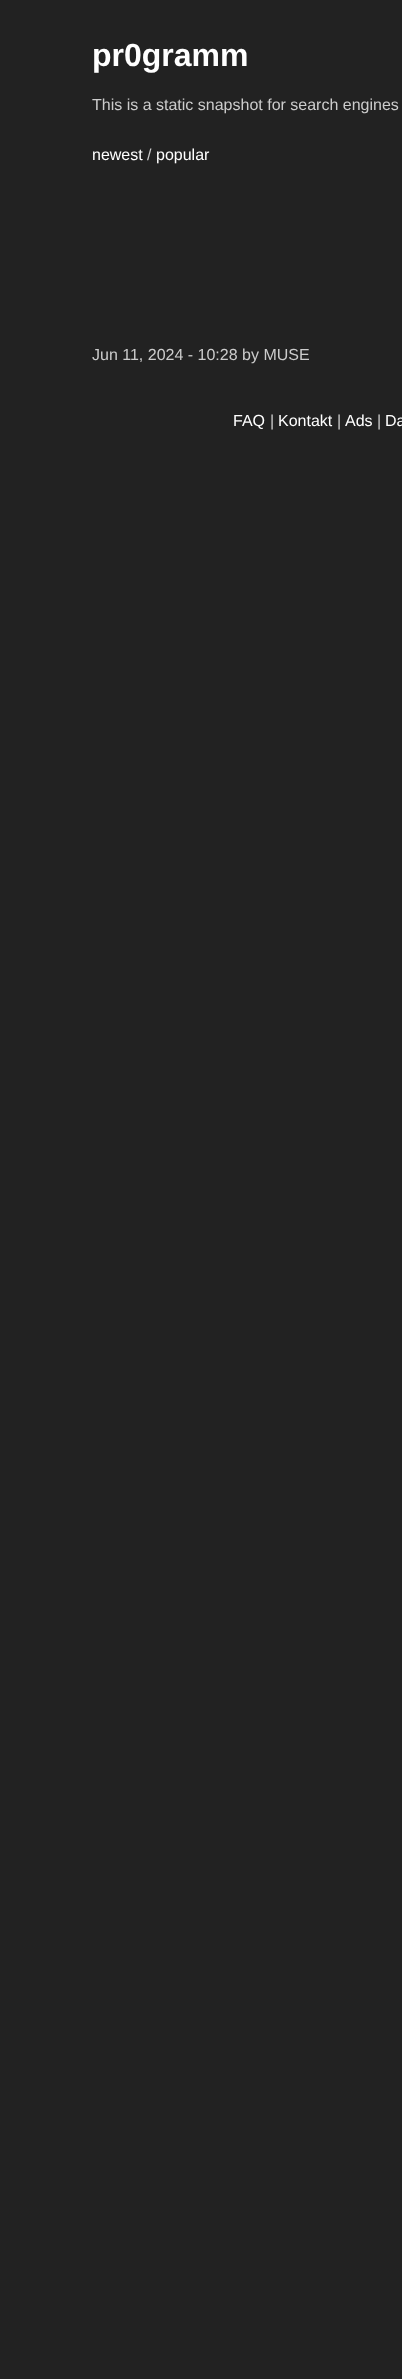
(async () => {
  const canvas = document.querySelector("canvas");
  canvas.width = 402;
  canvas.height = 2379;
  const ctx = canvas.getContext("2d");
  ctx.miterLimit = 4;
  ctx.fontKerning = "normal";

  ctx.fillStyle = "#222222";
  ctx.fillRect(0, 0, 402, 2379);
  ctx.font = "bold 32px Liberation Sans";
  ctx.fillStyle = "#ffffff";
  ctx.fillText("pr0gramm", 92, 66);
  ctx.font = "16px Liberation Sans";
  ctx.fillStyle = "#cccccc";
  ctx.fillText("This is a static snapshot for search engines", 92, 110);
  ctx.fillStyle = "#ffffff";
  ctx.fillText("newest", 92, 160);
  ctx.fillStyle = "#cccccc";
  ctx.fillText("/", 147, 160);
  ctx.fillStyle = "#ffffff";
  ctx.fillText("popular", 156, 160);
  ctx.fillStyle = "#cccccc";
  ctx.fillText("Jun 11, 2024 - 10:28 by MUSE", 92, 360);
  ctx.fillStyle = "#ffffff";
  ctx.fillText("FAQ", 233, 426);
  ctx.fillStyle = "#cccccc";
  ctx.fillText("|", 270, 426);
  ctx.fillStyle = "#ffffff";
  ctx.fillText("Kontakt", 278, 426);
  ctx.fillStyle = "#cccccc";
  ctx.fillText("|", 337, 426);
  ctx.fillStyle = "#ffffff";
  ctx.fillText("Ads", 345, 426);
  ctx.fillStyle = "#cccccc";
  ctx.fillText("|", 377, 426);
  ctx.fillStyle = "#ffffff";
  ctx.fillText("Da", 385, 426);
})();
